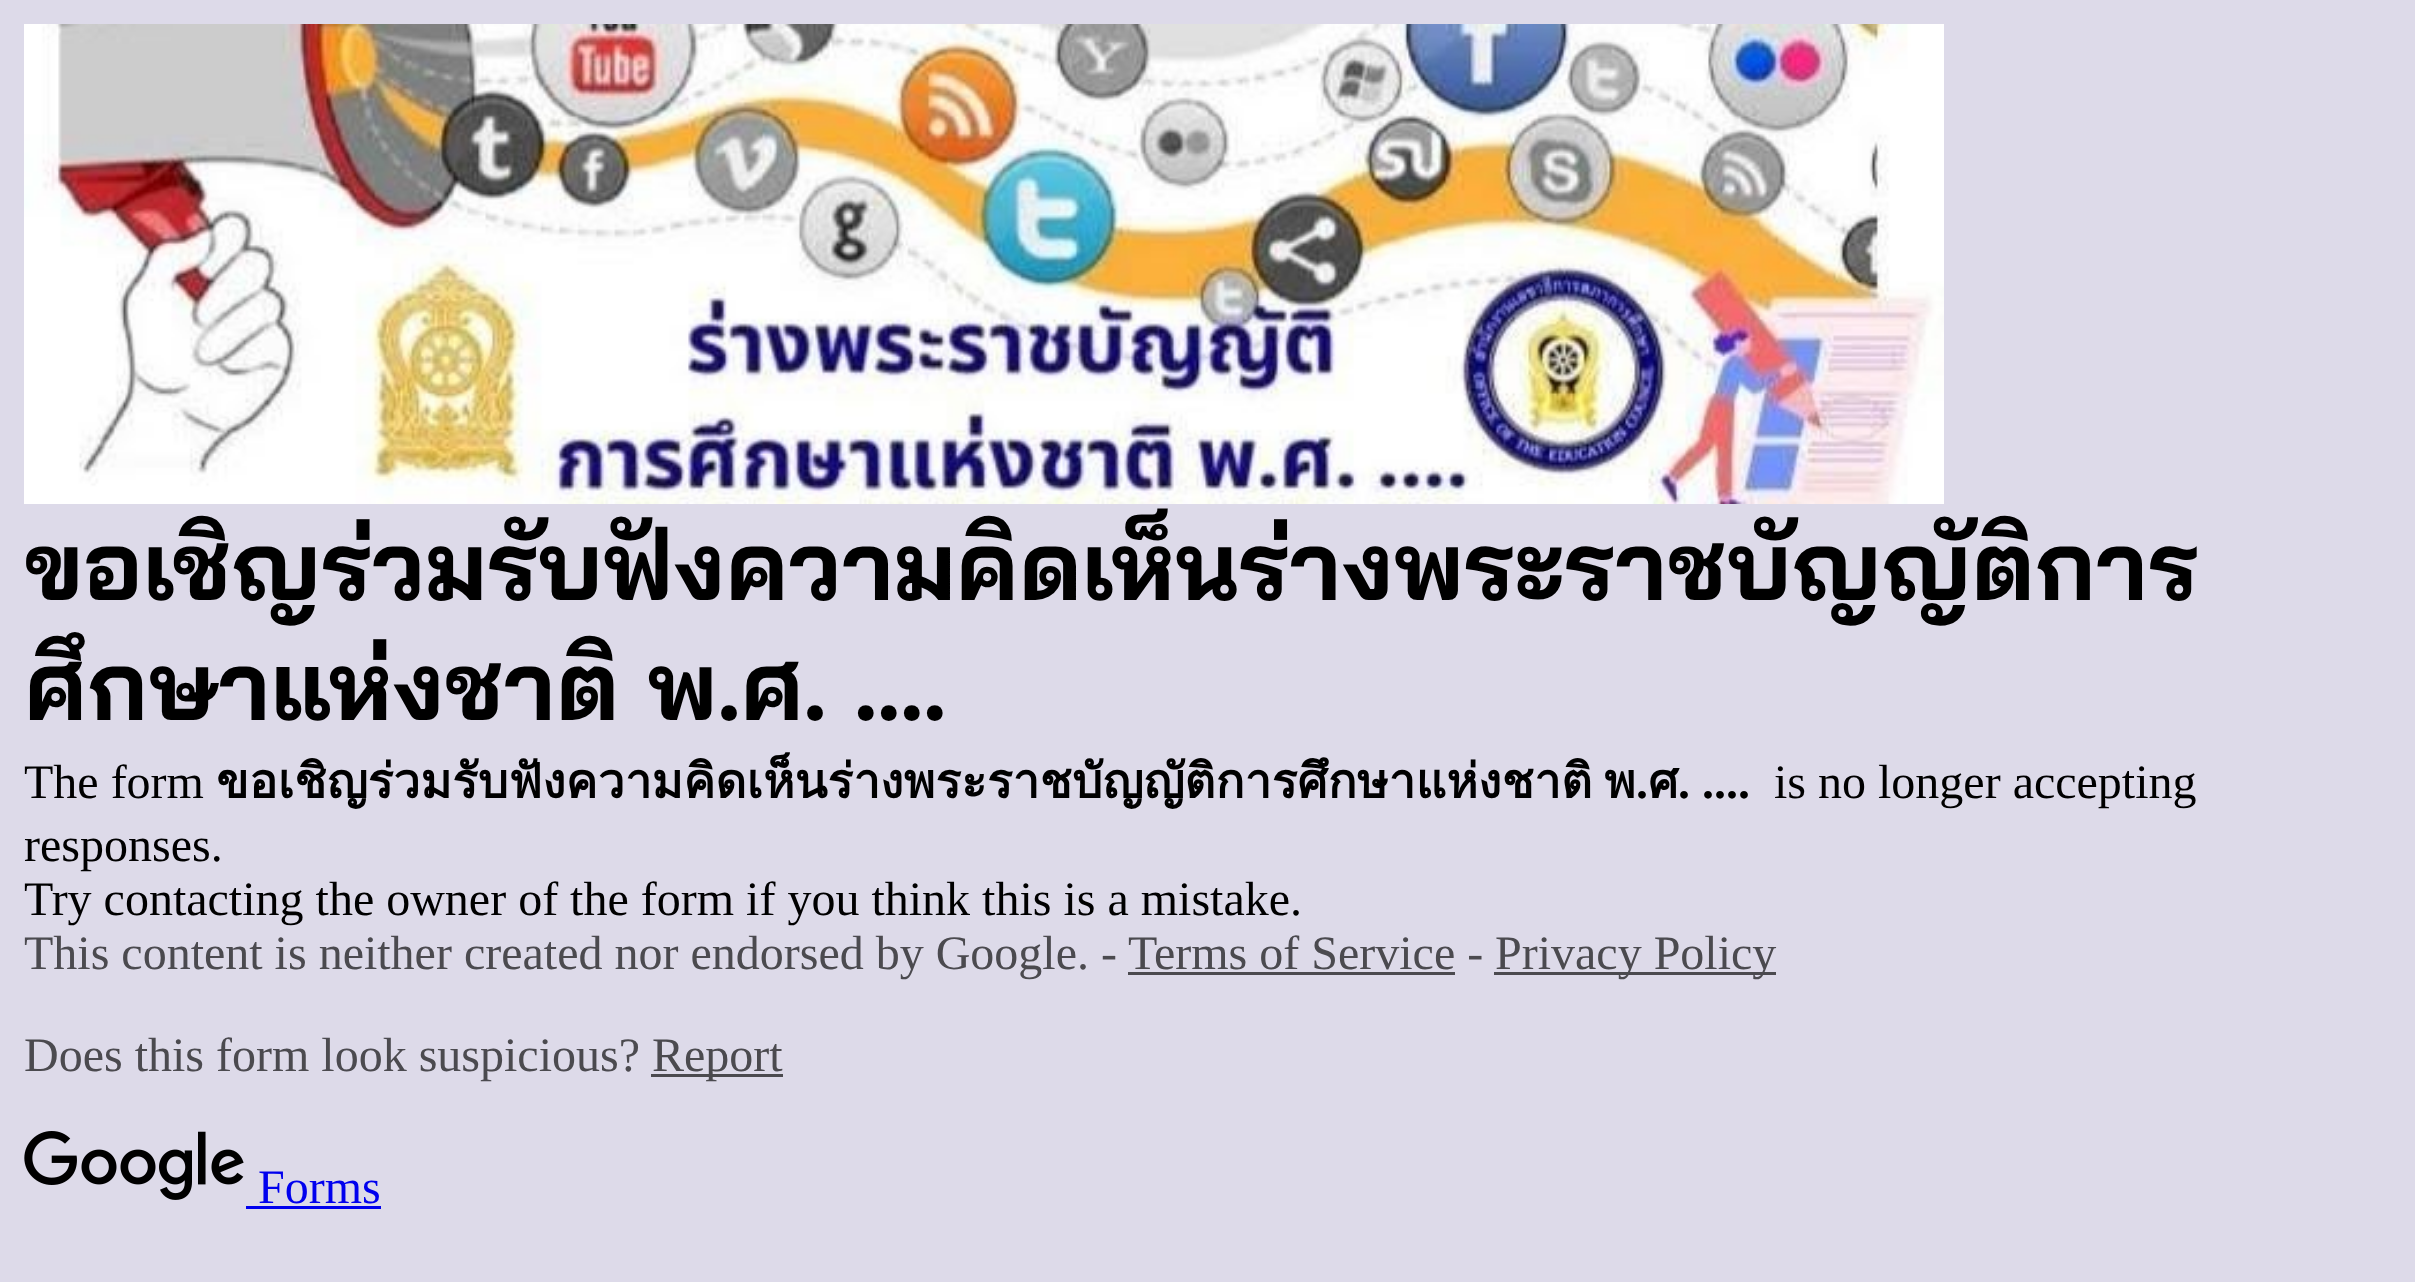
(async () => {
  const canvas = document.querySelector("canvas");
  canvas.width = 2415;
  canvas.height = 1282;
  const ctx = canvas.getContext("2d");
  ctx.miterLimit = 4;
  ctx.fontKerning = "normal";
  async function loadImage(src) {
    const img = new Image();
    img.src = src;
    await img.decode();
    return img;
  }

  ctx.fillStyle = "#dddae9";
  ctx.fillRect(0, 0, 2415, 1282);
  ctx.drawImage(await loadImage("img/1.png"), 24, 24, 1920, 480);
  for (const [x, y, w, h, color] of [
    [1128, 972, 327, 3, "#4b4a4f"],
    [1494, 972, 282, 3, "#4b4a4f"],
    [651, 1074, 132, 3, "#4b4a4f"],
  ]) {
    ctx.fillStyle = color;
    ctx.fillRect(x, y, w, h);
  }
  ctx.drawImage(await loadImage("img/2.png"), 24, 1131, 220, 69);
  ctx.fillStyle = "#0000ee";
  ctx.fillRect(246, 1206, 135, 3);
  ctx.font = "bold 96px Bai Jamjuree";
  ctx.fillStyle = "#000000";
  ctx.fillText("ขอเชิญร่วมรับฟังความคิดเห็นร่างพระราชบัญญัติการ", 24, 600);
  ctx.fillText("ศึกษาแห่งชาติ พ.ศ. ....", 24, 720);
  ctx.font = "48px Liberation Serif";
  ctx.fillText("The form", 24, 798);
  ctx.font = "bold 48px Loma";
  ctx.fillText("ขอเชิญร่วมรับฟังความคิดเห็นร่างพระราชบัญญัติการศึกษาแห่งชาติ", 216, 798);
  ctx.fillText("พ", 1604, 798);
  ctx.font = "bold 48px Liberation Serif";
  ctx.fillText(".", 1636, 798);
  ctx.font = "bold 48px Loma";
  ctx.fillText("ศ", 1648, 798);
  ctx.font = "bold 48px Liberation Serif";
  ctx.fillText(". ....", 1678, 798);
  ctx.font = "48px Liberation Serif";
  for (const [text, x, y] of [
    ["is no longer accepting", 1774, 798],
    ["responses.", 24, 861],
    ["Try contacting the owner of the form if you think this is a mistake.", 24, 915],
  ]) {
    ctx.fillText(text, x, y);
  }
  ctx.fillStyle = "#4b4a4f";
  for (const [text, x, y] of [
    ["This content is neither created nor endorsed by Google. -", 24, 969],
    ["Terms of Service -", 1128, 969],
    ["Privacy Policy", 1495, 969],
    ["Does this form look suspicious?", 24, 1071],
    ["Report", 652, 1071],
  ]) {
    ctx.fillText(text, x, y);
  }
  ctx.fillStyle = "#0000ee";
  ctx.fillText("Forms", 258, 1203);
})();
